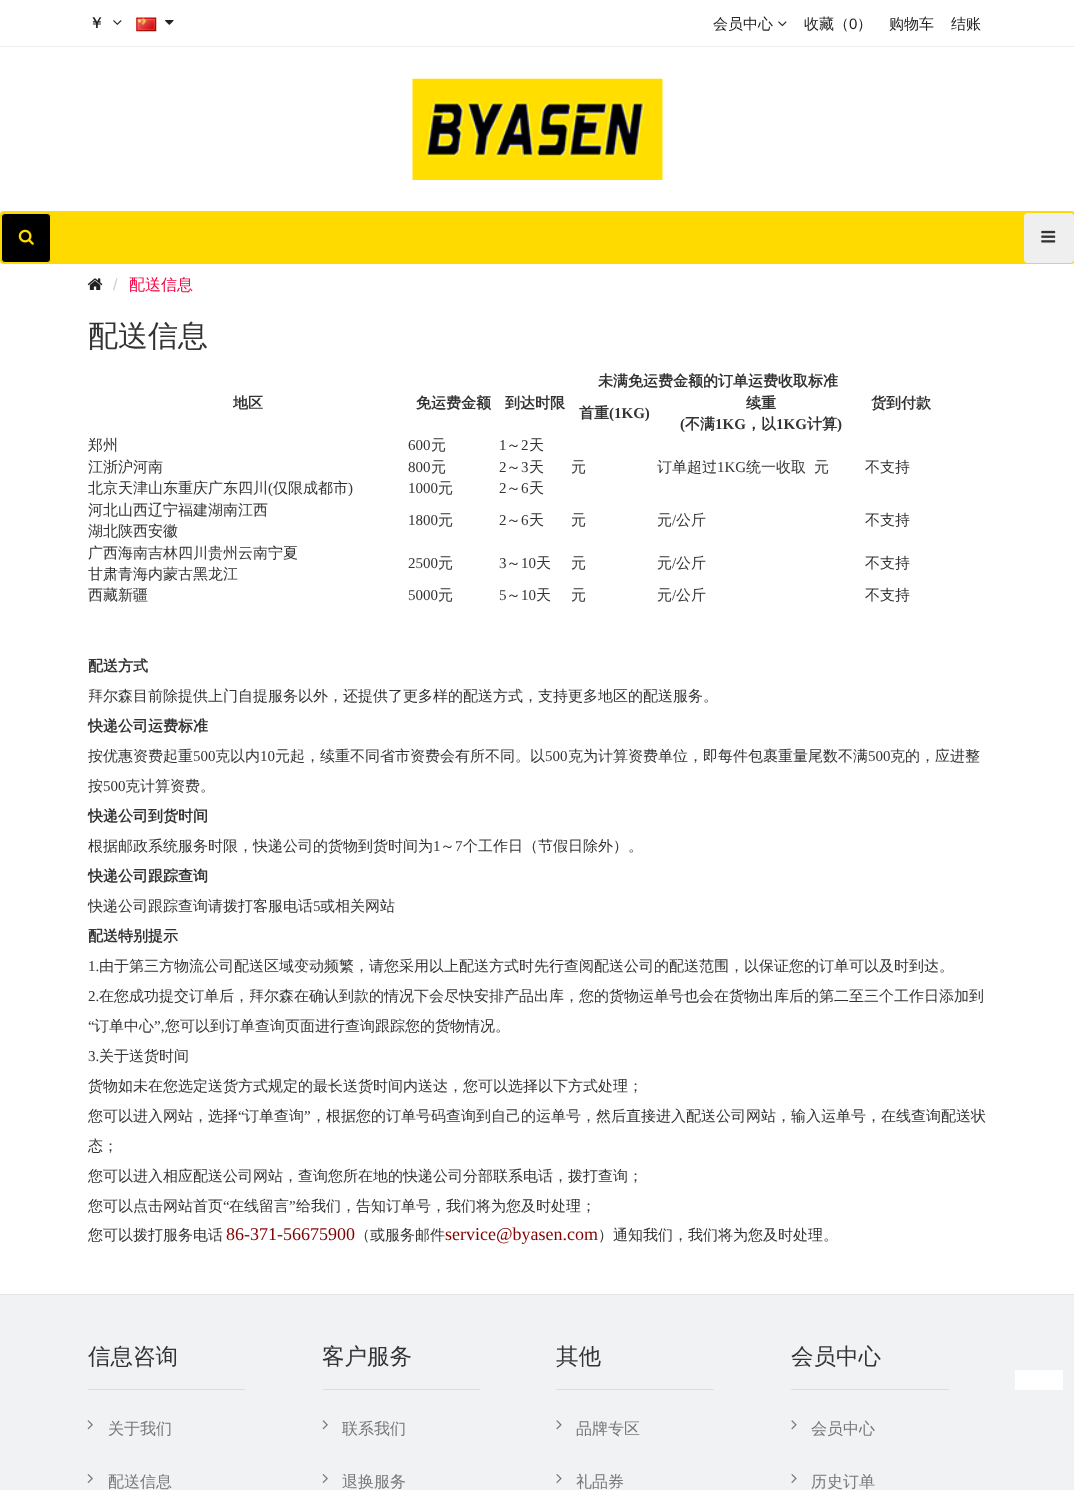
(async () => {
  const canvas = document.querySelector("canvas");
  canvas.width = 1074;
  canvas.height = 1490;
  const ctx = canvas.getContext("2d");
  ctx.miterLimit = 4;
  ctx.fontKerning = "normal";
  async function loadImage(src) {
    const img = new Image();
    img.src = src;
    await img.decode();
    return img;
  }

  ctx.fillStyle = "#ffffff";
  ctx.fillRect(0, 0, 1074, 1490);
  ctx.fillStyle = "#eeeeee";
  ctx.fillRect(0, 46, 1074, 1);
  ctx.drawImage(await loadImage("img/1.png"), 113, 20, 9, 5);
  ctx.drawImage(await loadImage("img/2.png"), 136, 17, 21, 15);
  ctx.drawImage(await loadImage("img/3.png"), 165, 20, 9, 5);
  ctx.drawImage(await loadImage("img/4.png"), 778, 21, 9, 6);
  ctx.drawImage(await loadImage("img/5.png"), 412, 78, 251, 102);
  ctx.fillStyle = "#ffda00";
  ctx.beginPath();
  ctx.roundRect(0, 211, 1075, 53, 4);
  ctx.fill();
  ctx.fillStyle = "#000000";
  ctx.beginPath();
  ctx.roundRect(1.5, 213.5, 49, 49, 3.5);
  ctx.fill();
  ctx.strokeStyle = "#ffda00";
  ctx.stroke();
  ctx.drawImage(await loadImage("img/6.png"), 18, 229, 16, 16);
  ctx.fillStyle = "#efefef";
  ctx.beginPath();
  ctx.roundRect(1024, 213, 50, 50, 4);
  ctx.fill();
  ctx.drawImage(await loadImage("img/7.png"), 1041, 230, 15, 13);
  ctx.drawImage(await loadImage("img/8.png"), 87, 278, 16, 12);
  for (const [x, y, w, h, color] of [
    [0, 1295, 1074, 195, "#f1f2f4"],
    [0, 1294, 1074, 1, "#e4e4e4"],
    [88, 1389, 157, 1, "#dddddd"],
  ]) {
    ctx.fillStyle = color;
    ctx.fillRect(x, y, w, h);
  }
  ctx.drawImage(await loadImage("img/9.png"), 87, 1420, 6, 10);
  ctx.drawImage(await loadImage("img/10.png"), 87, 1474, 6, 9);
  ctx.fillRect(323, 1389, 157, 1);
  ctx.drawImage(await loadImage("img/9.png"), 322, 1420, 6, 10);
  ctx.drawImage(await loadImage("img/10.png"), 322, 1474, 6, 9);
  ctx.fillRect(556, 1389, 158, 1);
  ctx.drawImage(await loadImage("img/11.png"), 556, 1420, 6, 10);
  ctx.drawImage(await loadImage("img/12.png"), 556, 1474, 6, 9);
  ctx.fillRect(791, 1389, 158, 1);
  ctx.drawImage(await loadImage("img/11.png"), 791, 1420, 6, 10);
  ctx.drawImage(await loadImage("img/12.png"), 791, 1474, 6, 9);
  ctx.fillStyle = "#ffffff";
  ctx.fillRect(1015, 1370, 48, 20);
  ctx.font = "bold 15px WenQuanYi Zen Hei";
  ctx.fillStyle = "#222222";
  ctx.fillText("￥", 89, 28);
  ctx.font = "500 15px WenQuanYi Zen Hei";
  ctx.fillText("会员中心", 713, 29);
  ctx.fillText("收藏（", 804, 29);
  ctx.font = "15px Liberation Sans";
  ctx.fillText("0", 849, 29);
  ctx.font = "500 15px WenQuanYi Zen Hei";
  for (const [text, x, y] of [
    ["）", 857, 29],
    ["购物车", 889, 29],
    ["结账", 951, 29],
  ]) {
    ctx.fillText(text, x, y);
  }
  ctx.font = "16px Liberation Sans";
  ctx.fillStyle = "#cccccc";
  ctx.fillText("/", 113, 290);
  ctx.font = "500 16px WenQuanYi Zen Hei";
  ctx.fillStyle = "#f30240";
  ctx.fillText("配送信息", 129, 290);
  ctx.font = "500 30px WenQuanYi Zen Hei";
  ctx.fillStyle = "#333333";
  ctx.fillText("配送信息", 88, 346);
  ctx.font = "bold 15px WenQuanYi Zen Hei";
  for (const [text, x, y] of [
    ["未满免运费金额的订单运费收取标准", 598, 386],
    ["地区", 233, 408],
    ["免运费金额", 416, 408],
    ["到达时限", 505, 408],
    ["货到付款", 871, 408],
    ["首重", 579, 418],
  ]) {
    ctx.fillText(text, x, y);
  }
  ctx.font = "bold 15px Liberation Serif";
  ctx.fillText("(1KG)", 609, 418);
  ctx.font = "bold 15px WenQuanYi Zen Hei";
  ctx.fillText("续重", 746, 408);
  ctx.font = "bold 15px Liberation Serif";
  ctx.fillText("(", 680, 429);
  ctx.font = "bold 15px WenQuanYi Zen Hei";
  ctx.fillText("不满", 685, 429);
  ctx.font = "bold 15px Liberation Serif";
  ctx.fillText("1KG", 715, 429);
  ctx.font = "bold 15px WenQuanYi Zen Hei";
  ctx.fillText("，以", 746, 429);
  ctx.font = "bold 15px Liberation Serif";
  ctx.fillText("1KG", 776, 429);
  ctx.font = "bold 15px WenQuanYi Zen Hei";
  ctx.fillText("计算", 807, 429);
  ctx.font = "bold 15px Liberation Serif";
  ctx.fillText(")", 837, 429);
  ctx.font = "500 15px WenQuanYi Zen Hei";
  ctx.fillText("郑州", 88, 450);
  ctx.font = "15px Liberation Serif";
  ctx.fillText("600", 408, 450);
  ctx.font = "500 15px WenQuanYi Zen Hei";
  ctx.fillText("元", 431, 450);
  ctx.font = "15px Liberation Serif";
  ctx.fillText("1", 499, 450);
  ctx.font = "500 15px WenQuanYi Zen Hei";
  ctx.fillText("～", 506, 450);
  ctx.font = "15px Liberation Serif";
  ctx.fillText("2", 521, 450);
  ctx.font = "500 15px WenQuanYi Zen Hei";
  for (const [text, x, y] of [
    ["天", 529, 450],
    ["元", 571, 472],
    ["订单超过", 657, 472],
  ]) {
    ctx.fillText(text, x, y);
  }
  ctx.font = "15px Liberation Serif";
  ctx.fillText("1KG", 717, 472);
  ctx.font = "500 15px WenQuanYi Zen Hei";
  for (const [text, x, y] of [
    ["统一收取", 746, 472],
    ["元", 814, 472],
    ["不支持", 865, 472],
    ["江浙沪河南", 88, 472],
  ]) {
    ctx.fillText(text, x, y);
  }
  ctx.font = "15px Liberation Serif";
  ctx.fillText("800", 408, 472);
  ctx.font = "500 15px WenQuanYi Zen Hei";
  ctx.fillText("元", 431, 472);
  ctx.font = "15px Liberation Serif";
  ctx.fillText("2", 499, 472);
  ctx.font = "500 15px WenQuanYi Zen Hei";
  ctx.fillText("～", 506, 472);
  ctx.font = "15px Liberation Serif";
  ctx.fillText("3", 521, 472);
  ctx.font = "500 15px WenQuanYi Zen Hei";
  ctx.fillText("天", 529, 472);
  ctx.fillText("北京天津山东重庆广东四川", 88, 493);
  ctx.font = "15px Liberation Serif";
  ctx.fillText("(", 268, 493);
  ctx.font = "500 15px WenQuanYi Zen Hei";
  ctx.fillText("仅限成都市", 273, 493);
  ctx.font = "15px Liberation Serif";
  ctx.fillText(")", 348, 493);
  ctx.fillText("1000", 408, 493);
  ctx.font = "500 15px WenQuanYi Zen Hei";
  ctx.fillText("元", 438, 493);
  ctx.font = "15px Liberation Serif";
  ctx.fillText("2", 499, 493);
  ctx.font = "500 15px WenQuanYi Zen Hei";
  ctx.fillText("～", 506, 493);
  ctx.font = "15px Liberation Serif";
  ctx.fillText("6", 521, 493);
  ctx.font = "500 15px WenQuanYi Zen Hei";
  for (const [text, x, y] of [
    ["天", 529, 493],
    ["河北山西辽宁福建湖南江西", 88, 515],
    ["湖北陕西安徽", 88, 536],
  ]) {
    ctx.fillText(text, x, y);
  }
  ctx.font = "15px Liberation Serif";
  ctx.fillText("1800", 408, 525);
  ctx.font = "500 15px WenQuanYi Zen Hei";
  ctx.fillText("元", 438, 525);
  ctx.font = "15px Liberation Serif";
  ctx.fillText("2", 499, 525);
  ctx.font = "500 15px WenQuanYi Zen Hei";
  ctx.fillText("～", 506, 525);
  ctx.font = "15px Liberation Serif";
  ctx.fillText("6", 521, 525);
  ctx.font = "500 15px WenQuanYi Zen Hei";
  for (const [text, x, y] of [
    ["天", 529, 525],
    ["元", 571, 525],
    ["元", 657, 525],
  ]) {
    ctx.fillText(text, x, y);
  }
  ctx.font = "15px Liberation Serif";
  ctx.fillText("/", 672, 525);
  ctx.font = "500 15px WenQuanYi Zen Hei";
  for (const [text, x, y] of [
    ["公斤", 676, 525],
    ["不支持", 865, 525],
    ["广西海南吉林四川贵州云南宁夏", 88, 558],
    ["甘肃青海内蒙古黑龙江", 88, 579],
  ]) {
    ctx.fillText(text, x, y);
  }
  ctx.font = "15px Liberation Serif";
  ctx.fillText("2500", 408, 568);
  ctx.font = "500 15px WenQuanYi Zen Hei";
  ctx.fillText("元", 438, 568);
  ctx.font = "15px Liberation Serif";
  ctx.fillText("3", 499, 568);
  ctx.font = "500 15px WenQuanYi Zen Hei";
  ctx.fillText("～", 506, 568);
  ctx.font = "15px Liberation Serif";
  ctx.fillText("10", 521, 568);
  ctx.font = "500 15px WenQuanYi Zen Hei";
  for (const [text, x, y] of [
    ["天", 536, 568],
    ["元", 571, 568],
    ["元", 657, 568],
  ]) {
    ctx.fillText(text, x, y);
  }
  ctx.font = "15px Liberation Serif";
  ctx.fillText("/", 672, 568);
  ctx.font = "500 15px WenQuanYi Zen Hei";
  for (const [text, x, y] of [
    ["公斤", 676, 568],
    ["不支持", 865, 568],
    ["西藏新疆", 88, 600],
  ]) {
    ctx.fillText(text, x, y);
  }
  ctx.font = "15px Liberation Serif";
  ctx.fillText("5000", 408, 600);
  ctx.font = "500 15px WenQuanYi Zen Hei";
  ctx.fillText("元", 438, 600);
  ctx.font = "15px Liberation Serif";
  ctx.fillText("5", 499, 600);
  ctx.font = "500 15px WenQuanYi Zen Hei";
  ctx.fillText("～", 506, 600);
  ctx.font = "15px Liberation Serif";
  ctx.fillText("10", 521, 600);
  ctx.font = "500 15px WenQuanYi Zen Hei";
  for (const [text, x, y] of [
    ["天", 536, 600],
    ["元", 571, 600],
    ["元", 657, 600],
  ]) {
    ctx.fillText(text, x, y);
  }
  ctx.font = "15px Liberation Serif";
  ctx.fillText("/", 672, 600);
  ctx.font = "500 15px WenQuanYi Zen Hei";
  ctx.fillText("公斤", 676, 600);
  ctx.fillText("不支持", 865, 600);
  ctx.font = "bold 15px WenQuanYi Zen Hei";
  ctx.fillText("配送方式", 88, 671);
  ctx.font = "500 15px WenQuanYi Zen Hei";
  ctx.fillText("拜尔森目前除提供上门自提服务以外，还提供了更多样的配送方式，支持更多地区的配送服务。", 88, 701);
  ctx.font = "bold 15px WenQuanYi Zen Hei";
  ctx.fillText("快递公司运费标准", 88, 731);
  ctx.font = "500 15px WenQuanYi Zen Hei";
  ctx.fillText("按优惠资费起重", 88, 761);
  ctx.font = "15px Liberation Serif";
  ctx.fillText("500", 193, 761);
  ctx.font = "500 15px WenQuanYi Zen Hei";
  ctx.fillText("克以内", 215, 761);
  ctx.font = "15px Liberation Serif";
  ctx.fillText("10", 260, 761);
  ctx.font = "500 15px WenQuanYi Zen Hei";
  ctx.fillText("元起，续重不同省市资费会有所不同。以", 275, 761);
  ctx.font = "15px Liberation Serif";
  ctx.fillText("500", 545, 761);
  ctx.font = "500 15px WenQuanYi Zen Hei";
  ctx.fillText("克为计算资费单位，即每件包裹重量尾数不满", 568, 761);
  ctx.font = "15px Liberation Serif";
  ctx.fillText("500", 868, 761);
  ctx.font = "500 15px WenQuanYi Zen Hei";
  ctx.fillText("克的，应进整", 890, 761);
  ctx.fillText("按", 88, 791);
  ctx.font = "15px Liberation Serif";
  ctx.fillText("500", 103, 791);
  ctx.font = "500 15px WenQuanYi Zen Hei";
  ctx.fillText("克计算资费。", 125, 791);
  ctx.font = "bold 15px WenQuanYi Zen Hei";
  ctx.fillText("快递公司到货时间", 88, 821);
  ctx.font = "500 15px WenQuanYi Zen Hei";
  ctx.fillText("根据邮政系统服务时限，快递公司的货物到货时间为", 88, 851);
  ctx.font = "15px Liberation Serif";
  ctx.fillText("1", 433, 851);
  ctx.font = "500 15px WenQuanYi Zen Hei";
  ctx.fillText("～", 440, 851);
  ctx.font = "15px Liberation Serif";
  ctx.fillText("7", 455, 851);
  ctx.font = "500 15px WenQuanYi Zen Hei";
  ctx.fillText("个工作日（节假日除外）。", 463, 851);
  ctx.font = "bold 15px WenQuanYi Zen Hei";
  ctx.fillText("快递公司跟踪查询", 88, 881);
  ctx.font = "500 15px WenQuanYi Zen Hei";
  ctx.fillText("快递公司跟踪查询请拨打客服电话", 88, 911);
  ctx.font = "15px Liberation Serif";
  ctx.fillText("5", 313, 911);
  ctx.font = "500 15px WenQuanYi Zen Hei";
  ctx.fillText("或相关网站", 320, 911);
  ctx.font = "bold 15px WenQuanYi Zen Hei";
  ctx.fillText("配送特别提示", 88, 941);
  ctx.font = "15px Liberation Serif";
  ctx.fillText("1.", 88, 971);
  ctx.font = "500 15px WenQuanYi Zen Hei";
  ctx.fillText("由于第三方物流公司配送区域变动频繁，请您采用以上配送方式时先行查阅配送公司的配送范围，以保证您的订单可以及时到达。", 99, 971);
  ctx.font = "15px Liberation Serif";
  ctx.fillText("2.", 88, 1001);
  ctx.font = "500 15px WenQuanYi Zen Hei";
  ctx.fillText("在您成功提交订单后，拜尔森在确认到款的情况下会尽快安排产品出库，您的货物运单号也会在货物出库后的第二至三个工作日添加到", 99, 1001);
  ctx.font = "15px Liberation Serif";
  ctx.fillText("“", 88, 1031);
  ctx.font = "500 15px WenQuanYi Zen Hei";
  ctx.fillText("订单中心", 94, 1031);
  ctx.font = "15px Liberation Serif";
  ctx.fillText("”,", 154, 1031);
  ctx.font = "500 15px WenQuanYi Zen Hei";
  ctx.fillText("您可以到订单查询页面进行查询跟踪您的货物情况。", 165, 1031);
  ctx.font = "15px Liberation Serif";
  ctx.fillText("3.", 88, 1061);
  ctx.font = "500 15px WenQuanYi Zen Hei";
  for (const [text, x, y] of [
    ["关于送货时间", 99, 1061],
    ["货物如未在您选定送货方式规定的最长送货时间内送达，您可以选择以下方式处理；", 88, 1091],
    ["您可以进入网站，选择", 88, 1121],
  ]) {
    ctx.fillText(text, x, y);
  }
  ctx.font = "15px Liberation Serif";
  ctx.fillText("“", 238, 1121);
  ctx.font = "500 15px WenQuanYi Zen Hei";
  ctx.fillText("订单查询", 244, 1121);
  ctx.font = "15px Liberation Serif";
  ctx.fillText("”", 304, 1121);
  ctx.font = "500 15px WenQuanYi Zen Hei";
  for (const [text, x, y] of [
    ["，根据您的订单号码查询到自己的运单号，然后直接进入配送公司网站，输入运单号，在线查询配送状", 311, 1121],
    ["态；", 88, 1151],
    ["您可以进入相应配送公司网站，查询您所在地的快递公司分部联系电话，拨打查询；", 88, 1181],
    ["您可以点击网站首页", 88, 1211],
  ]) {
    ctx.fillText(text, x, y);
  }
  ctx.font = "15px Liberation Serif";
  ctx.fillText("“", 223, 1211);
  ctx.font = "500 15px WenQuanYi Zen Hei";
  ctx.fillText("在线留言", 229, 1211);
  ctx.font = "15px Liberation Serif";
  ctx.fillText("”", 289, 1211);
  ctx.font = "500 15px WenQuanYi Zen Hei";
  ctx.fillText("给我们，告知订单号，我们将为您及时处理；", 296, 1211);
  ctx.fillText("您可以拨打服务电话", 88, 1240);
  ctx.font = "18px Liberation Serif";
  ctx.fillStyle = "#800000";
  ctx.fillText("86-371-56675900", 226, 1240);
  ctx.font = "500 15px WenQuanYi Zen Hei";
  ctx.fillStyle = "#333333";
  ctx.fillText("（或服务邮件", 355, 1240);
  ctx.font = "18px Liberation Serif";
  ctx.fillStyle = "#800000";
  ctx.fillText("service@byasen.com", 445, 1240);
  ctx.font = "500 15px WenQuanYi Zen Hei";
  ctx.fillStyle = "#333333";
  ctx.fillText("）通知我们，我们将为您及时处理。", 598, 1240);
  ctx.font = "500 22.5px WenQuanYi Zen Hei";
  ctx.fillText("信息咨询", 88, 1364);
  ctx.font = "500 16px WenQuanYi Zen Hei";
  ctx.fillStyle = "#777777";
  ctx.fillText("关于我们", 108, 1434);
  ctx.fillText("配送信息", 108, 1487);
  ctx.font = "500 22.5px WenQuanYi Zen Hei";
  ctx.fillStyle = "#333333";
  ctx.fillText("客户服务", 322, 1364);
  ctx.font = "500 16px WenQuanYi Zen Hei";
  ctx.fillStyle = "#777777";
  ctx.fillText("联系我们", 342, 1434);
  ctx.fillText("退换服务", 342, 1487);
  ctx.font = "500 22.5px WenQuanYi Zen Hei";
  ctx.fillStyle = "#333333";
  ctx.fillText("其他", 556, 1364);
  ctx.font = "500 16px WenQuanYi Zen Hei";
  ctx.fillStyle = "#777777";
  ctx.fillText("品牌专区", 576, 1434);
  ctx.fillText("礼品券", 576, 1487);
  ctx.font = "500 22.5px WenQuanYi Zen Hei";
  ctx.fillStyle = "#333333";
  ctx.fillText("会员中心", 791, 1364);
  ctx.font = "500 16px WenQuanYi Zen Hei";
  ctx.fillStyle = "#777777";
  ctx.fillText("会员中心", 811, 1434);
  ctx.fillText("历史订单", 811, 1487);
})();
